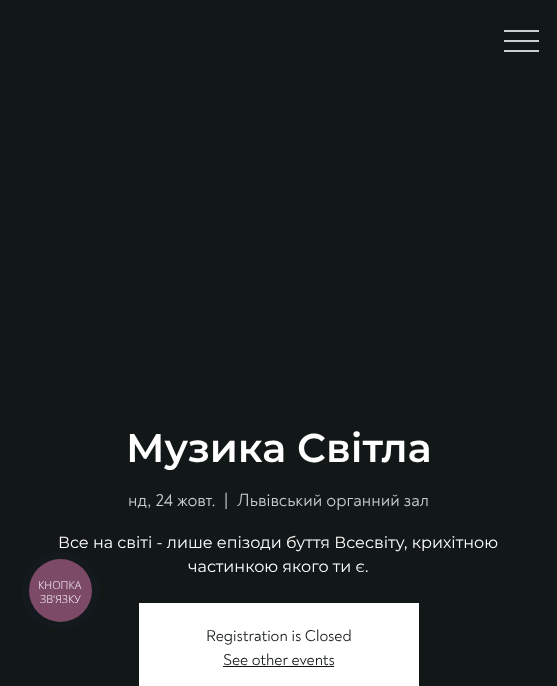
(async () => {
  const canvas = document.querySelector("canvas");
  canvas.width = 557;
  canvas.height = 686;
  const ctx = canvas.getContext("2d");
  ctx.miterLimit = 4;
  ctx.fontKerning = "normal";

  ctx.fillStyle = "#121718";
  ctx.fillRect(0, 0, 557, 686);
  for (const [x, y, w, h, color] of [
    [504, 30, 35, 2, "#c6cfd1"],
    [504, 40, 35, 2, "#c6cfd1"],
    [504, 50, 35, 2, "#c6cfd1"],
    [139, 603, 280, 83, "#ffffff"],
    [223, 666, 111, 1, "#121718"],
  ]) {
    ctx.fillStyle = color;
    ctx.fillRect(x, y, w, h);
  }
  ctx.font = "600 40px Montserrat";
  ctx.fillStyle = "#ffffff";
  ctx.fillText("Музика Світла", 126, 462);
  ctx.font = "18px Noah";
  ctx.fillStyle = "#c6cfd1";
  for (const [text, x, y] of [
    ["нд, 24 жовт.", 128, 506],
    ["|", 224, 506],
    ["Львівський органний зал", 237, 506],
  ]) {
    ctx.fillText(text, x, y);
  }
  ctx.font = "16px Montserrat";
  ctx.fillStyle = "#ffffff";
  ctx.fillText("Все на світі - лише епізоди буття Всесвіту, крихітною", 58, 548);
  ctx.fillText("частинкою якого ти є.", 188, 572);
  ctx.font = "16px Noah";
  ctx.fillStyle = "#121718";
  ctx.fillText("Registration is Closed", 206, 641);
  ctx.fillText("See other events", 223, 665);
  ctx.fillStyle = "#13191c";
  ctx.beginPath();
  ctx.arc(60.5, 590.5, 39.5, 0, Math.PI * 2);
  ctx.fill();
  ctx.fillStyle = "#7c4967";
  ctx.beginPath();
  ctx.arc(60.5, 590.5, 31.5, 0, Math.PI * 2);
  ctx.fill();
  ctx.font = "300 11px Open Sans";
  ctx.fillStyle = "#ffffff";
  ctx.fillText("КНОПКА", 38, 589);
  ctx.fillText("ЗВ'ЯЗКУ", 40, 603);
})();
